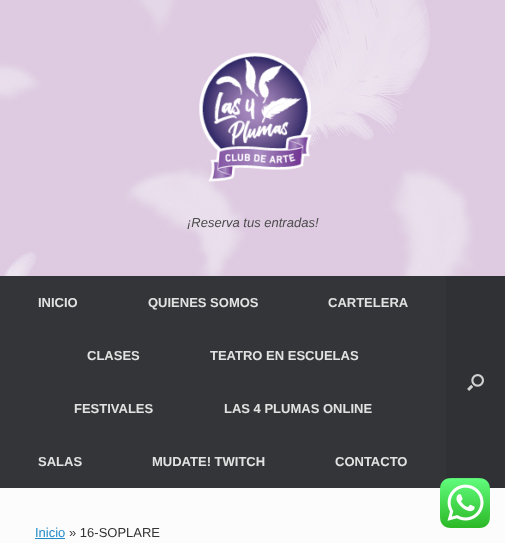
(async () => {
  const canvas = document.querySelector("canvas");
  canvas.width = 505;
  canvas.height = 543;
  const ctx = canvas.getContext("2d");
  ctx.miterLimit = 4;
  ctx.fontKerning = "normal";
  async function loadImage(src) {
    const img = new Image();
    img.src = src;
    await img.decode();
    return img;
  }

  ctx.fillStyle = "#ffffff";
  ctx.fillRect(0, 0, 505, 543);
  ctx.drawImage(await loadImage("img/1.png"), 0, 0, 505, 276);
  ctx.drawImage(await loadImage("img/2.png"), 199, 52, 113, 130);
  ctx.fillStyle = "#343538";
  ctx.fillRect(0, 276, 446, 212);
  ctx.fillStyle = "#303134";
  ctx.fillRect(446, 276, 59, 212);
  ctx.drawImage(await loadImage("img/3.png"), 467, 374, 17, 17);
  ctx.fillStyle = "#fcfcfc";
  ctx.fillRect(0, 488, 505, 55);
  ctx.fillStyle = "#248cc8";
  ctx.fillRect(35, 538, 30, 1);
  ctx.drawImage(await loadImage("img/4.png"), 440, 478, 50, 50);
  ctx.font = "italic 13px Liberation Sans";
  ctx.fillStyle = "#4b4b4b";
  ctx.fillText("¡Reserva tus entradas!", 187, 227);
  ctx.font = "bold 13px Liberation Sans";
  ctx.fillStyle = "#e2e2e2";
  for (const [text, x, y] of [
    ["INICIO", 38, 307],
    ["QUIENES SOMOS", 148, 307],
    ["CARTELERA", 328, 307],
    ["CLASES", 87, 360],
    ["TEATRO EN ESCUELAS", 210, 360],
    ["FESTIVALES", 74, 413],
    ["LAS 4 PLUMAS ONLINE", 224, 413],
    ["SALAS", 38, 466],
    ["MUDATE! TWITCH", 152, 466],
    ["CONTACTO", 335, 466],
  ]) {
    ctx.fillText(text, x, y);
  }
  ctx.font = "13px Liberation Sans";
  ctx.fillStyle = "#248cc8";
  ctx.fillText("Inicio", 35, 537);
  ctx.fillStyle = "#333333";
  ctx.fillText("» 16-SOPLARE", 69, 537);
})();
